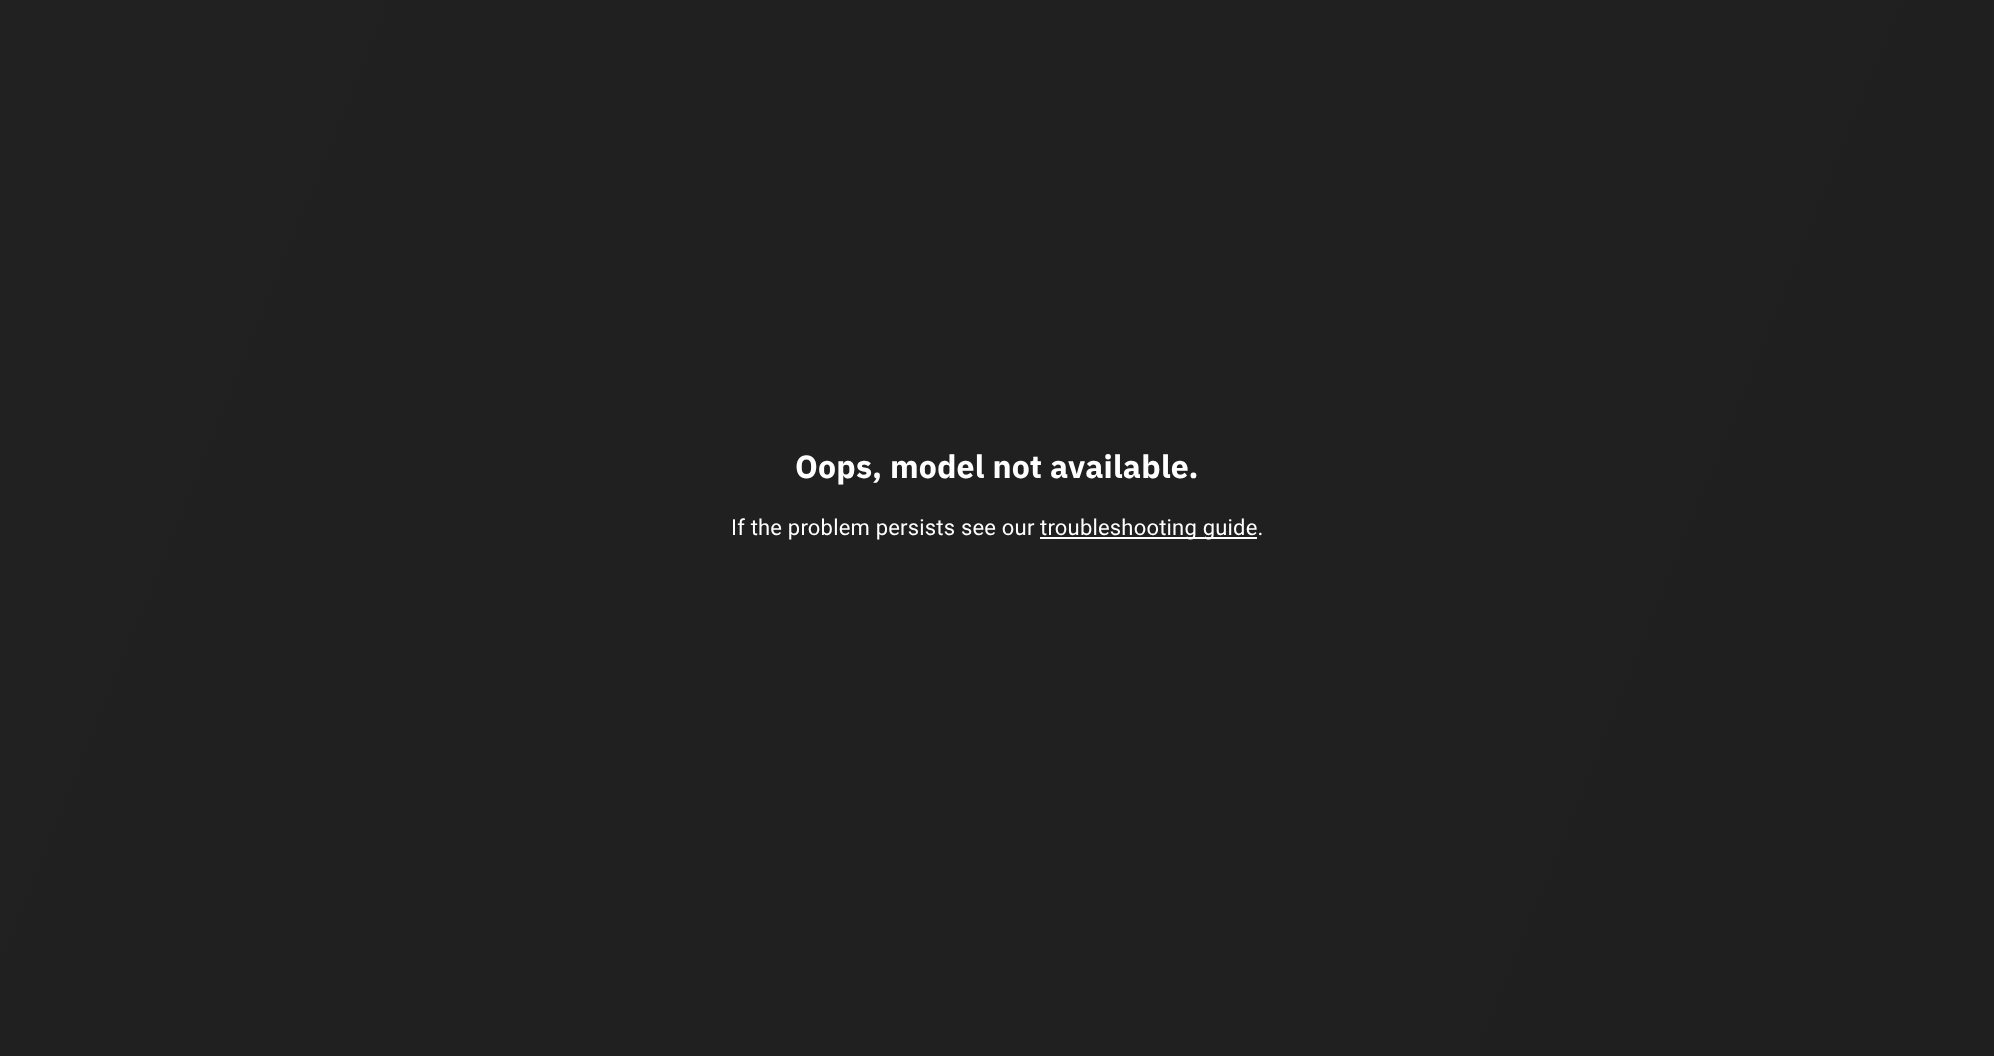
(async () => {
  const canvas = document.querySelector("canvas");
  canvas.width = 1994;
  canvas.height = 1056;
  const ctx = canvas.getContext("2d");
  ctx.miterLimit = 4;
  ctx.fontKerning = "normal";
  let gradient;

  ctx.fillStyle = "#ffffff";
  ctx.fillRect(0, 0, 1994, 1056);
  gradient = ctx.createLinearGradient(-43, 108, 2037, 948);
  gradient.addColorStop(0, "#212121");
  gradient.addColorStop(1, "#1f1f1f");
  ctx.fillStyle = gradient;
  ctx.fillRect(0, 0, 1994, 1056);
  ctx.fillStyle = "#ffffff";
  ctx.fillRect(1040, 537, 217, 2);
  ctx.letterSpacing = "0.2px";
  ctx.font = "bold 32px IBM Plex Sans";
  ctx.fillText("Oops, model not available.", 795, 478);
  ctx.font = "22px Roboto";
  ctx.fillText("If the problem persists see our", 731, 535);
  ctx.fillText("troubleshooting guide.", 1040, 535);
})();
